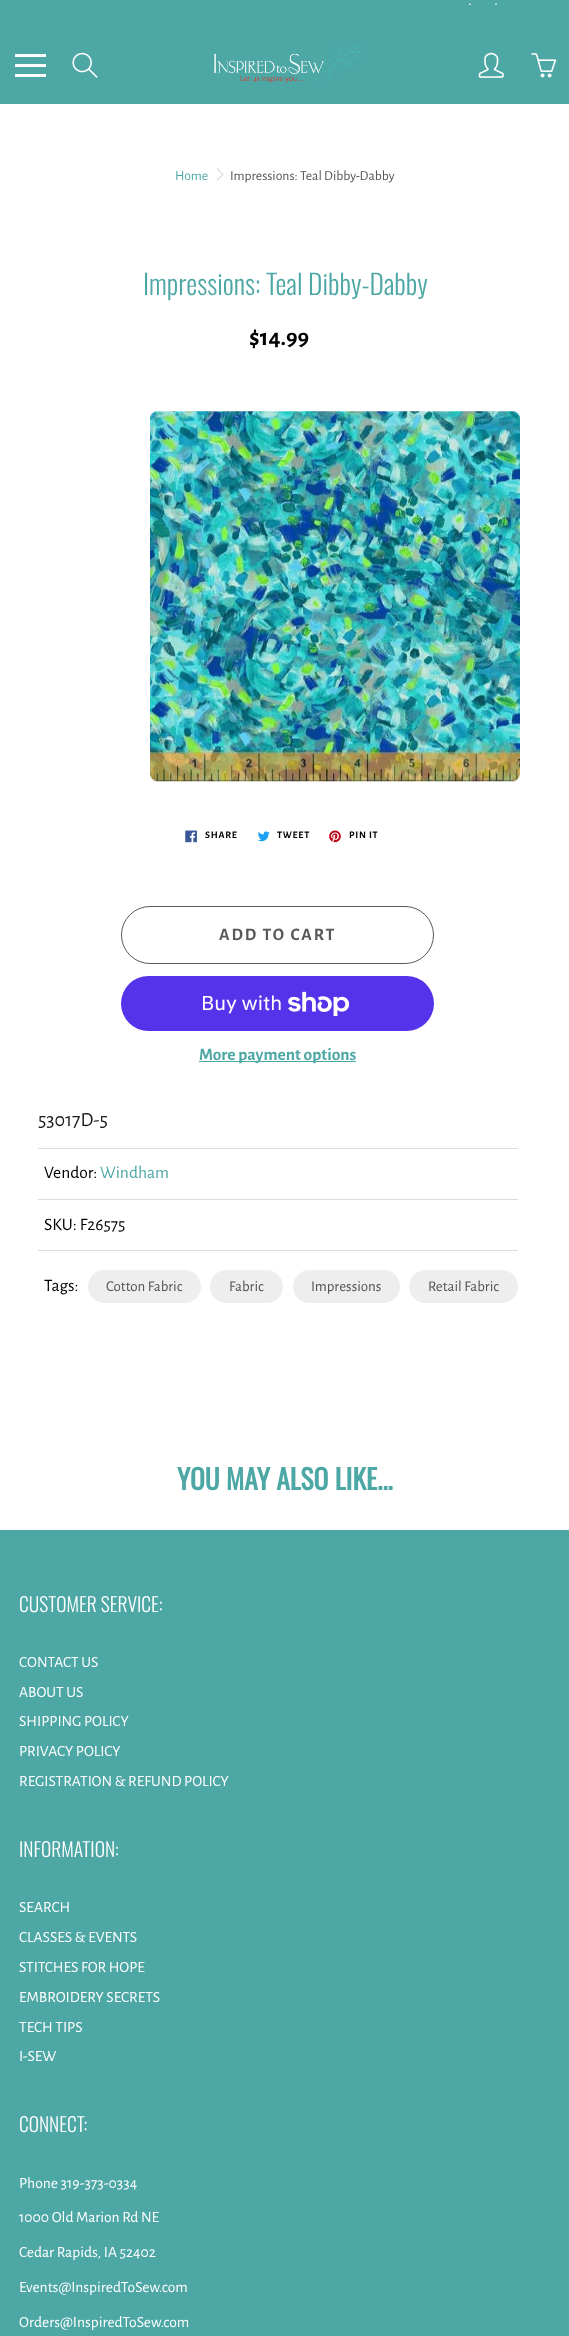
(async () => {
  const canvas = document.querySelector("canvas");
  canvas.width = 569;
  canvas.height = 2336;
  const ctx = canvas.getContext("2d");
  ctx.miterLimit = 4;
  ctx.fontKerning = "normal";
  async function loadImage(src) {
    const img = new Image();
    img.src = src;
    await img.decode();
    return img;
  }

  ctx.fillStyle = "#ffffff";
  ctx.fillRect(0, 0, 569, 2336);
  for (const [x, y, w, h, color] of [
    [0, 0, 569, 104, "#4ca7a5"],
    [15, 64, 31, 3, "#ffffff"],
    [15, 54, 31, 3, "#ffffff"],
    [15, 74, 31, 3, "#ffffff"],
  ]) {
    ctx.fillStyle = color;
    ctx.fillRect(x, y, w, h);
  }
  ctx.drawImage(await loadImage("img/1.png"), 72, 52, 26, 26);
  ctx.drawImage(await loadImage("img/2.png"), 213, 45, 151, 39);
  ctx.drawImage(await loadImage("img/3.png"), 478, 52, 26, 26);
  ctx.drawImage(await loadImage("img/4.png"), 531, 53, 26, 25);
  ctx.drawImage(await loadImage("img/5.png"), 216, 168, 8, 13);
  ctx.drawImage(await loadImage("img/6.png"), 150, 411, 370, 371);
  ctx.drawImage(await loadImage("img/7.png"), 185, 830, 12, 13);
  ctx.drawImage(await loadImage("img/8.png"), 258, 831, 12, 11);
  ctx.drawImage(await loadImage("img/9.png"), 329, 830, 12, 13);
  ctx.beginPath();
  ctx.roundRect(121.5, 906.5, 312, 57, 28.5);
  ctx.strokeStyle = "#595959";
  ctx.stroke();
  ctx.fillStyle = "#5433eb";
  ctx.beginPath();
  ctx.roundRect(121, 976, 313, 55, 27.5);
  ctx.fill();
  ctx.drawImage(await loadImage("img/10.png"), 288, 991, 62, 25);
  for (const [x, y, w, h, color] of [
    [199, 1061, 157, 1, "#4ca7a5"],
    [38, 1148, 480, 1, "#dddddd"],
    [38, 1199, 480, 1, "#dddddd"],
    [38, 1250, 480, 1, "#dddddd"],
  ]) {
    ctx.fillStyle = color;
    ctx.fillRect(x, y, w, h);
  }
  ctx.fillStyle = "#eeeeee";
  ctx.beginPath();
  ctx.roundRect(88, 1270, 113, 33, 16.5);
  ctx.fill();
  ctx.beginPath();
  ctx.roundRect(210, 1270, 73, 33, 16.5);
  ctx.fill();
  ctx.beginPath();
  ctx.roundRect(293, 1270, 107, 33, 16.5);
  ctx.fill();
  ctx.beginPath();
  ctx.roundRect(409, 1270, 109, 33, 16.5);
  ctx.fill();
  ctx.fillStyle = "#4ca7a5";
  ctx.fillRect(0, 1530, 569, 806);
  ctx.font = "17.5px Alegreya Sans";
  ctx.fillStyle = "#ffffff";
  ctx.fillText(".", 468, 5);
  ctx.fillText(".", 494, 5);
  ctx.font = "13.75px Alegreya Sans";
  ctx.fillStyle = "#4ca7a5";
  ctx.fillText("Home", 175, 180);
  ctx.fillStyle = "#535353";
  ctx.fillText("Impressions: Teal Dibby-Dabby", 230, 180);
  ctx.font = "300 27.5px Oswald";
  ctx.fillStyle = "#4ca7a5";
  ctx.fillText("Impressions: Teal Dibby-Dabby", 143, 295);
  ctx.font = "bold 24px Alegreya Sans";
  ctx.fillStyle = "#000000";
  ctx.fillText("$14.99", 249, 345);
  ctx.letterSpacing = "0.75px";
  ctx.font = "bold 10px Alegreya Sans";
  for (const [text, x, y] of [
    ["SHARE", 205, 838],
    ["TWEET", 277, 838],
    ["PIN IT", 349, 838],
  ]) {
    ctx.fillText(text, x, y);
  }
  ctx.letterSpacing = "1.9px";
  ctx.font = "bold 17.5px Alegreya Sans";
  ctx.fillStyle = "#595959";
  ctx.fillText("ADD TO CART", 219, 940);
  ctx.letterSpacing = "0px";
  ctx.font = "20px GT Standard";
  ctx.fillStyle = "#ffffff";
  ctx.fillText("Buy with", 201, 1010);
  ctx.font = "bold 17.5px Alegreya Sans";
  ctx.fillStyle = "#4ca7a5";
  ctx.fillText("More payment options", 199, 1060);
  ctx.font = "20px Alegreya Sans";
  ctx.fillStyle = "#1a1a1a";
  ctx.fillText("53017D-5", 38, 1126);
  ctx.font = "17.5px Alegreya Sans";
  ctx.fillStyle = "#000000";
  ctx.fillText("Vendor:", 44, 1178);
  ctx.fillStyle = "#4ca7a5";
  ctx.fillText("Windham", 100, 1178);
  ctx.fillStyle = "#000000";
  ctx.fillText("SKU: F26575", 44, 1230);
  ctx.fillText("Tags:", 44, 1291);
  ctx.font = "15px Alegreya Sans";
  ctx.fillStyle = "#535353";
  for (const [text, x, y] of [
    ["Cotton Fabric", 106, 1291],
    ["Fabric", 229, 1291],
    ["Impressions", 311, 1291],
    ["Retail Fabric", 428, 1291],
  ]) {
    ctx.fillText(text, x, y);
  }
  ctx.font = "bold 27.5px Oswald";
  ctx.fillStyle = "#4ca7a5";
  ctx.fillText("YOU MAY ALSO LIKE...", 177, 1490);
  ctx.font = "300 19.5px Oswald";
  ctx.fillStyle = "#ffffff";
  ctx.fillText("CUSTOMER SERVICE:", 19, 1612);
  ctx.font = "15.6px Alegreya Sans";
  for (const [text, x, y] of [
    ["CONTACT US", 19, 1667],
    ["ABOUT US", 19, 1697],
    ["SHIPPING POLICY", 19, 1726],
    ["PRIVACY POLICY", 19, 1756],
    ["REGISTRATION & REFUND POLICY", 19, 1786],
  ]) {
    ctx.fillText(text, x, y);
  }
  ctx.font = "300 19.5px Oswald";
  ctx.fillText("INFORMATION:", 19, 1857);
  ctx.font = "15.6px Alegreya Sans";
  for (const [text, x, y] of [
    ["SEARCH", 19, 1912],
    ["CLASSES & EVENTS", 19, 1942],
    ["STITCHES FOR HOPE", 19, 1972],
    ["EMBROIDERY SECRETS", 19, 2002],
    ["TECH TIPS", 19, 2032],
    ["I-SEW", 19, 2061],
  ]) {
    ctx.fillText(text, x, y);
  }
  ctx.font = "300 19.5px Oswald";
  ctx.fillText("CONNECT:", 19, 2132);
  ctx.font = "15.6px Alegreya Sans";
  for (const [text, x, y] of [
    ["Phone 319-373-0334", 19, 2188],
    ["1000 Old Marion Rd NE", 19, 2222],
    ["Cedar Rapids, IA 52402", 19, 2257],
    ["Events@InspiredToSew.com", 19, 2292],
    ["Orders@InspiredToSew.com", 19, 2327],
  ]) {
    ctx.fillText(text, x, y);
  }
})();
